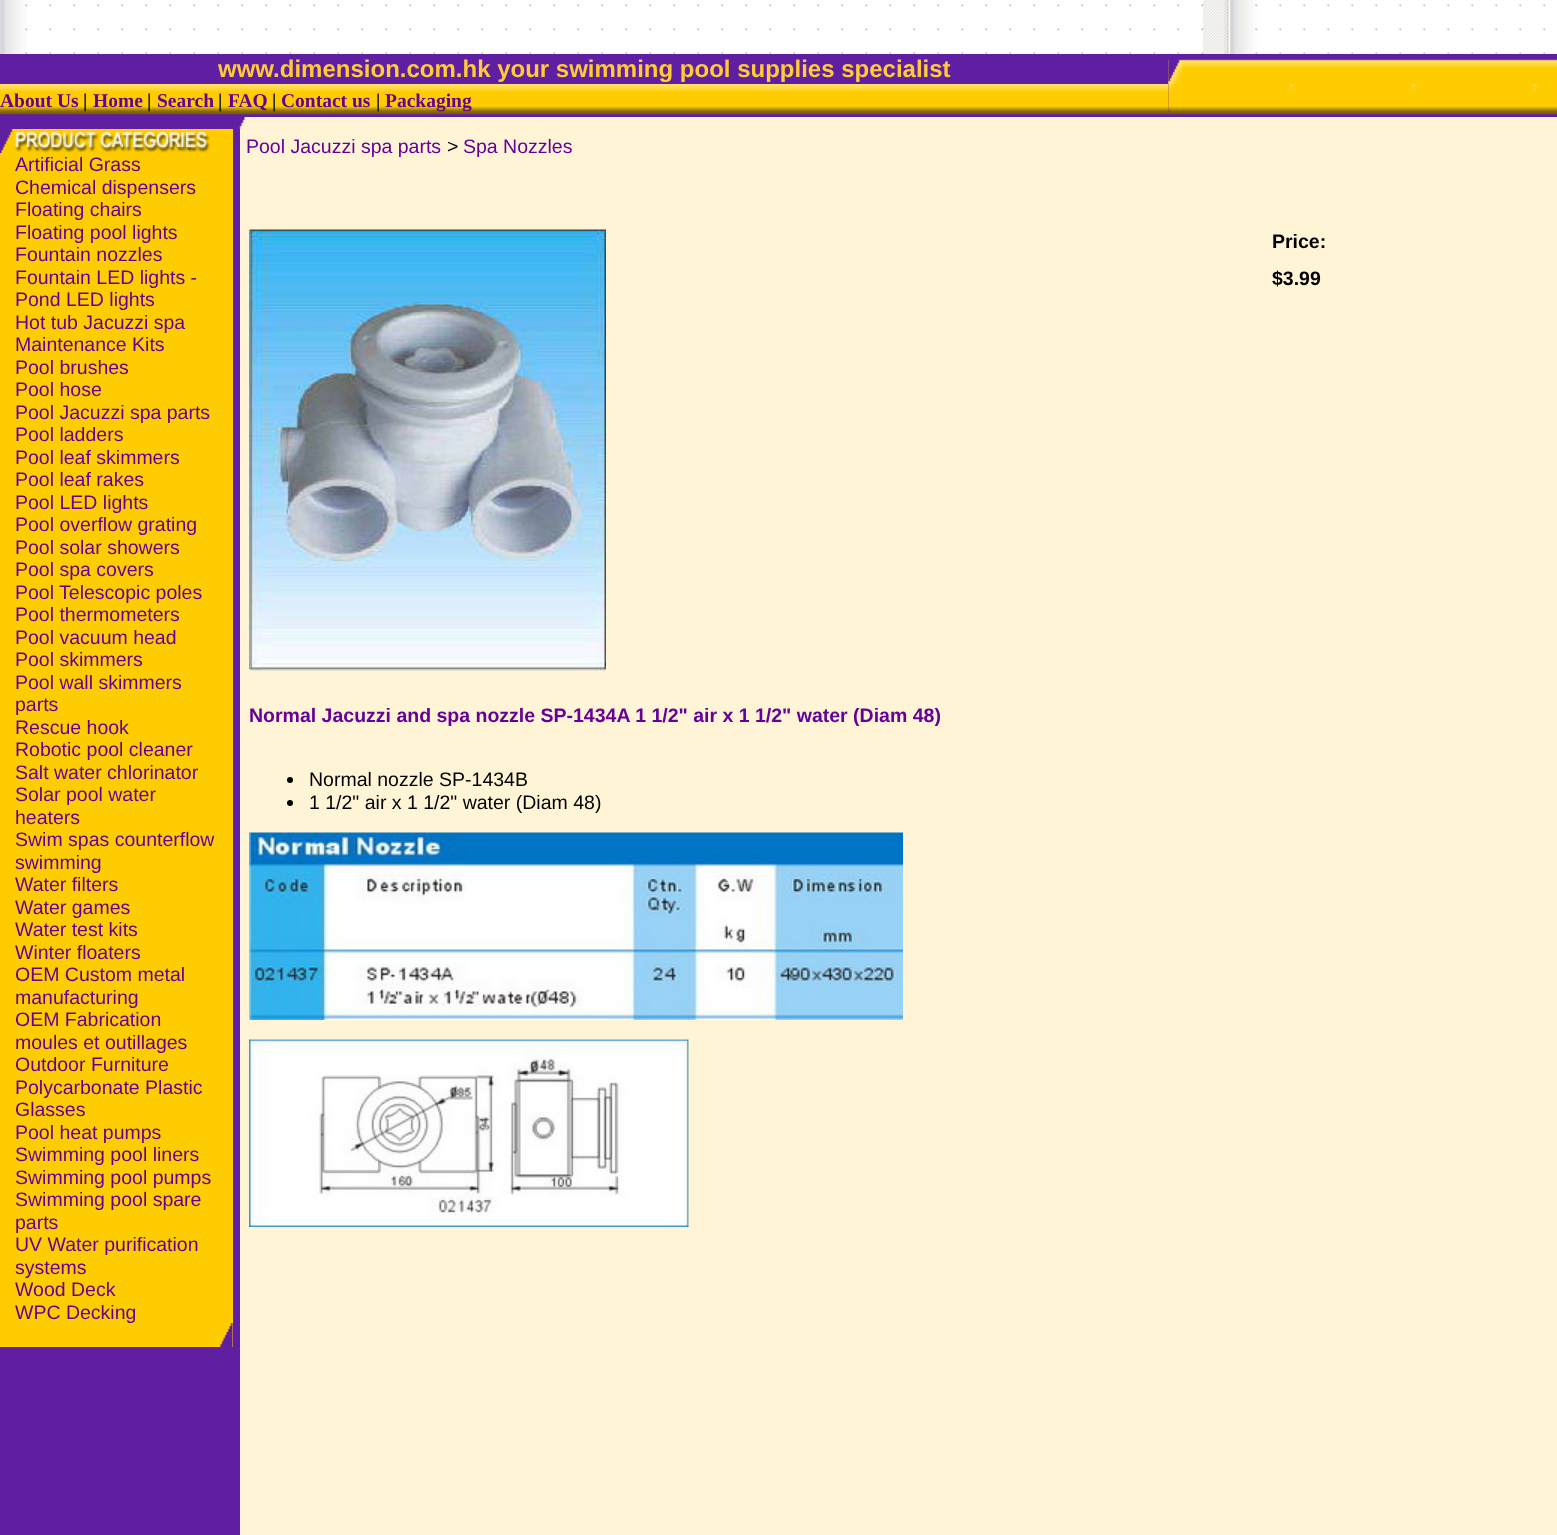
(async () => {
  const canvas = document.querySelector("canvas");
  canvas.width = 1557;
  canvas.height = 1535;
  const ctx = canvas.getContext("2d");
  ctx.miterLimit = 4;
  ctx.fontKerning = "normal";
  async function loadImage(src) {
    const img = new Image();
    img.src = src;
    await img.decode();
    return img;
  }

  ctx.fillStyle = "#fff4d5";
  ctx.fillRect(0, 0, 1557, 1535);
  ctx.fillStyle = "#ffffff";
  ctx.fillRect(1546, 0, 11, 54);
  ctx.drawImage(await loadImage("img/1.png"), 0, 0, 1546, 54);
  ctx.fillStyle = "#601ea2";
  ctx.fillRect(0, 54, 1169, 63);
  ctx.drawImage(await loadImage("img/2.png"), 1168, 54, 389, 30);
  ctx.drawImage(await loadImage("img/3.png"), 1168, 59, 14, 25);
  ctx.drawImage(await loadImage("img/4.png"), 0, 84, 1169, 31);
  ctx.drawImage(await loadImage("img/5.png"), 1168, 84, 389, 33);
  ctx.drawImage(await loadImage("img/6.png"), 0, 117, 245, 12);
  ctx.fillRect(0, 129, 240, 1406);
  ctx.fillStyle = "#ffcc00";
  ctx.fillRect(0, 129, 233, 1218);
  ctx.drawImage(await loadImage("img/7.png"), 0, 129, 13, 24);
  ctx.drawImage(await loadImage("img/8.png"), 15, 131, 195, 22);
  ctx.drawImage(await loadImage("img/9.png"), 220, 1323, 13, 24);
  ctx.drawImage(await loadImage("img/10.png"), 249, 229, 357, 442);
  ctx.fillStyle = "#000000";
  ctx.beginPath();
  ctx.arc(290, 780, 3, 0, Math.PI * 2);
  ctx.fill();
  ctx.beginPath();
  ctx.arc(290, 803, 3, 0, Math.PI * 2);
  ctx.fill();
  ctx.drawImage(await loadImage("img/11.png"), 249, 832, 654, 188);
  ctx.drawImage(await loadImage("img/12.png"), 249, 1039, 440, 188);
  ctx.font = "bold 24px Liberation Sans";
  ctx.fillStyle = "#ffcc33";
  ctx.fillText("www.dimension.com.hk your swimming pool supplies specialist", 218, 77);
  ctx.font = "bold 19.5px Liberation Serif";
  ctx.fillStyle = "#660099";
  ctx.fillText("About Us", 0, 107);
  ctx.fillStyle = "#000000";
  ctx.fillText("|", 83, 107);
  ctx.fillStyle = "#660099";
  ctx.fillText("Home", 93, 107);
  ctx.fillStyle = "#000000";
  ctx.fillText("|", 147, 107);
  ctx.fillStyle = "#660099";
  ctx.fillText("Search", 157, 107);
  ctx.fillStyle = "#000000";
  ctx.fillText("|", 218, 107);
  ctx.fillStyle = "#660099";
  ctx.fillText("FAQ", 228, 107);
  ctx.fillStyle = "#000000";
  ctx.fillText("|", 272, 107);
  ctx.fillStyle = "#660099";
  ctx.fillText("Contact us", 281, 107);
  ctx.fillStyle = "#000000";
  ctx.fillText("|", 376, 107);
  ctx.fillStyle = "#660099";
  ctx.fillText("Packaging", 385, 107);
  ctx.font = "19.5px Liberation Sans";
  for (const [text, x, y] of [
    ["Artificial Grass", 15, 171],
    ["Chemical dispensers", 15, 194],
    ["Floating chairs", 15, 216],
    ["Floating pool lights", 15, 239],
    ["Fountain nozzles", 15, 261],
    ["Fountain LED lights -", 15, 284],
    ["Pond LED lights", 15, 306],
    ["Hot tub Jacuzzi spa", 15, 329],
    ["Maintenance Kits", 15, 351],
    ["Pool brushes", 15, 374],
    ["Pool hose", 15, 396],
    ["Pool Jacuzzi spa parts", 15, 419],
    ["Pool ladders", 15, 441],
    ["Pool leaf skimmers", 15, 464],
    ["Pool leaf rakes", 15, 486],
    ["Pool LED lights", 15, 509],
    ["Pool overflow grating", 15, 531],
    ["Pool solar showers", 15, 554],
    ["Pool spa covers", 15, 576],
    ["Pool Telescopic poles", 15, 599],
    ["Pool thermometers", 15, 621],
    ["Pool vacuum head", 15, 644],
    ["Pool skimmers", 15, 666],
    ["Pool wall skimmers", 15, 689],
    ["parts", 15, 711],
    ["Rescue hook", 15, 734],
    ["Robotic pool cleaner", 15, 756],
    ["Salt water chlorinator", 15, 779],
    ["Solar pool water", 15, 801],
    ["heaters", 15, 824],
    ["Swim spas counterflow", 15, 846],
    ["swimming", 15, 869],
    ["Water filters", 15, 891],
    ["Water games", 15, 914],
    ["Water test kits", 15, 936],
    ["Winter floaters", 15, 959],
    ["OEM Custom metal", 15, 981],
    ["manufacturing", 15, 1004],
    ["OEM Fabrication", 15, 1026],
    ["moules et outillages", 15, 1049],
    ["Outdoor Furniture", 15, 1071],
    ["Polycarbonate Plastic", 15, 1094],
    ["Glasses", 15, 1116],
    ["Pool heat pumps", 15, 1139],
    ["Swimming pool liners", 15, 1161],
    ["Swimming pool pumps", 15, 1184],
    ["Swimming pool spare", 15, 1206],
    ["parts", 15, 1229],
    ["UV Water purification", 15, 1251],
    ["systems", 15, 1274],
    ["Wood Deck", 15, 1296],
    ["WPC Decking", 15, 1319],
    ["Pool Jacuzzi spa parts", 246, 153],
  ]) {
    ctx.fillText(text, x, y);
  }
  ctx.fillStyle = "#000000";
  ctx.fillText(">", 447, 153);
  ctx.fillStyle = "#660099";
  ctx.fillText("Spa Nozzles", 463, 153);
  ctx.font = "bold 19.5px Liberation Sans";
  ctx.fillStyle = "#000000";
  ctx.fillText("Price:", 1272, 248);
  ctx.fillText("$3.99", 1272, 285);
  ctx.fillStyle = "#660099";
  ctx.fillText("Normal Jacuzzi and spa nozzle SP-1434A 1 1/2\" air x 1 1/2\" water (Diam 48)", 249, 722);
  ctx.font = "19.5px Liberation Sans";
  ctx.fillStyle = "#000000";
  ctx.fillText("Normal nozzle SP-1434B", 309, 786);
  ctx.fillText("1 1/2\" air x 1 1/2\" water (Diam 48)", 309, 809);
})();
